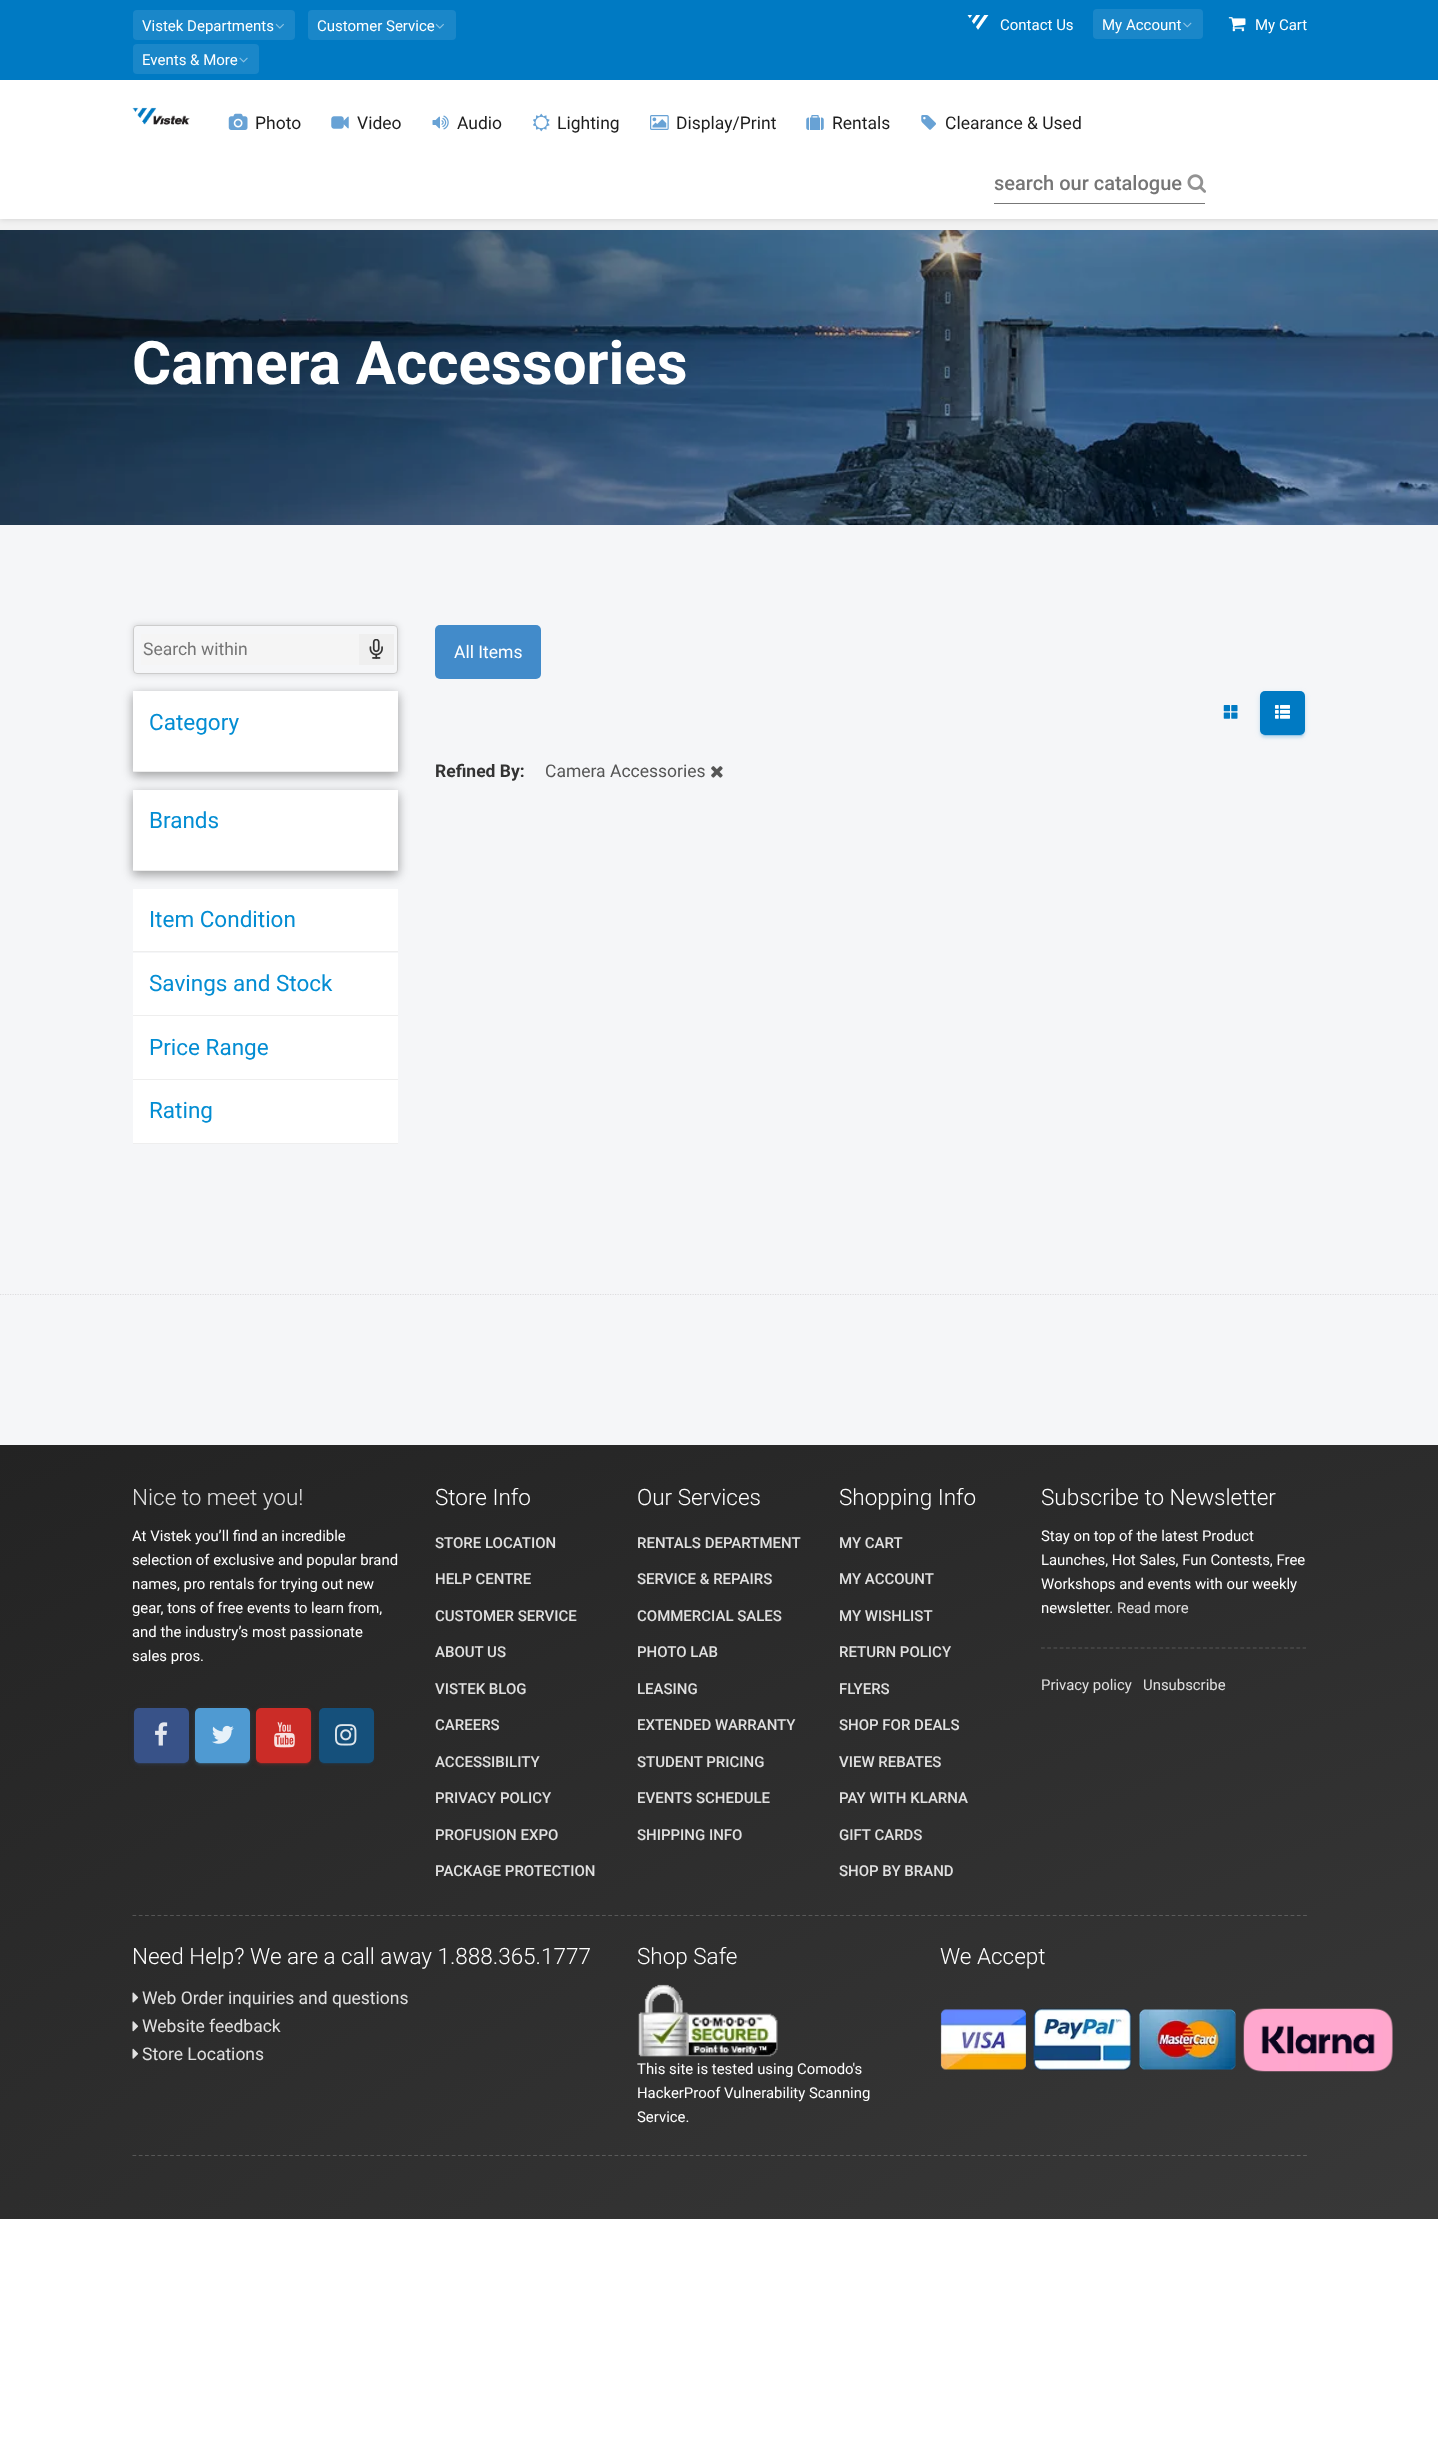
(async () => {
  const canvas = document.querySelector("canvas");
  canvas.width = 1438;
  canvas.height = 2450;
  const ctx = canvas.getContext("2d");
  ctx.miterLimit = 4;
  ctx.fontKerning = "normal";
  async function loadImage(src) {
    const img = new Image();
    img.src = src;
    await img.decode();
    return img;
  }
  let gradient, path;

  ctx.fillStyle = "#ffffff";
  ctx.fillRect(0, 0, 1438, 2450);
  ctx.fillStyle = "#f5f6f8";
  ctx.fillRect(0, 525, 1438, 920);
  ctx.fillStyle = "#f2f2f2";
  ctx.fillRect(0, 219, 1438, 11);
  ctx.fillStyle = "rgba(0, 0, 0, 0.15)";
  ctx.filter = "blur(3px)";
  ctx.beginPath();
  ctx.rect(0, 50, 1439, 169);
  ctx.fill();
  ctx.filter = "none";
  ctx.fillStyle = "#007ac3";
  ctx.fillRect(0, 0, 1438, 80);
  ctx.fillStyle = "#1a87c9";
  ctx.beginPath();
  ctx.roundRect(133, 10, 162, 30, 4);
  ctx.fill();
  ctx.drawImage(await loadImage("img/1.png"), 275, 23, 9, 6);
  ctx.beginPath();
  ctx.roundRect(308, 10, 148, 30, 4);
  ctx.fill();
  ctx.drawImage(await loadImage("img/1.png"), 435, 23, 9, 6);
  ctx.beginPath();
  ctx.roundRect(133, 44, 126, 30, 4);
  ctx.fill();
  ctx.drawImage(await loadImage("img/2.png"), 239, 57, 9, 6);
  ctx.drawImage(await loadImage("img/3.png"), 967, 15, 22, 15);
  ctx.beginPath();
  ctx.roundRect(1093, 9, 110, 30, 4);
  ctx.fill();
  ctx.drawImage(await loadImage("img/4.png"), 1183, 22, 9, 6);
  ctx.drawImage(await loadImage("img/5.png"), 1228, 17, 18, 15);
  ctx.fillStyle = "#ffffff";
  ctx.fillRect(0, 80, 1438, 139);
  ctx.drawImage(await loadImage("img/6.png"), 132, 107, 58, 18);
  ctx.drawImage(await loadImage("img/7.png"), 228, 113, 20, 17);
  ctx.drawImage(await loadImage("img/8.png"), 331, 116, 18, 13);
  ctx.drawImage(await loadImage("img/9.png"), 432, 115, 17, 15);
  ctx.drawImage(await loadImage("img/10.png"), 533, 113, 17, 19);
  ctx.drawImage(await loadImage("img/11.png"), 650, 115, 19, 15);
  ctx.drawImage(await loadImage("img/12.png"), 806, 115, 18, 15);
  ctx.drawImage(await loadImage("img/13.png"), 921, 115, 15, 15);
  ctx.fillStyle = "#777777";
  ctx.fillRect(994, 203, 211, 1);
  ctx.drawImage(await loadImage("img/14.png"), 1187, 174, 19, 19);
  ctx.drawImage(await loadImage("img/15.png"), 0, 230, 1438, 295);
  ctx.save();
  path = new Path2D("M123 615H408V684H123ZM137 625H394C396 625 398 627 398 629V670C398 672 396 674 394 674H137C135 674 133 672 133 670V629C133 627 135 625 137 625Z");
  ctx.clip(path, "evenodd");
  ctx.fillStyle = "rgba(0, 0, 0, 0.15)";
  ctx.filter = "blur(3px)";
  ctx.beginPath();
  ctx.roundRect(133, 625, 265, 49, 4);
  ctx.fill();
  ctx.filter = "none";
  ctx.restore();
  ctx.beginPath();
  ctx.roundRect(133.5, 625.5, 264, 48, 3.5);
  ctx.strokeStyle = "#cccccc";
  ctx.stroke();
  ctx.fillStyle = "#f5f5f5";
  ctx.fillRect(141, 634, 218, 31);
  ctx.fillStyle = "#efefef";
  ctx.fillRect(359, 634, 35, 31);
  ctx.drawImage(await loadImage("img/16.png"), 369, 639, 14, 20);
  ctx.fillStyle = "rgba(0, 0, 0, 0.19)";
  ctx.filter = "blur(6px)";
  ctx.beginPath();
  ctx.rect(133, 695, 265, 81);
  ctx.fill();
  ctx.filter = "none";
  ctx.fillStyle = "rgba(0, 0, 0, 0.2)";
  ctx.filter = "blur(5px)";
  ctx.beginPath();
  ctx.rect(133, 694, 265, 81);
  ctx.fill();
  ctx.filter = "none";
  ctx.fillStyle = "#ffffff";
  ctx.fillRect(133, 691, 265, 80);
  ctx.fillStyle = "#eeeeee";
  ctx.fillRect(133, 771, 265, 1);
  ctx.fillStyle = "rgba(0, 0, 0, 0.19)";
  ctx.filter = "blur(6px)";
  ctx.beginPath();
  ctx.rect(133, 794, 265, 81);
  ctx.fill();
  ctx.filter = "none";
  ctx.fillStyle = "rgba(0, 0, 0, 0.2)";
  ctx.filter = "blur(5px)";
  ctx.beginPath();
  ctx.rect(133, 793, 265, 81);
  ctx.fill();
  ctx.filter = "none";
  for (const [x, y, w, h, color] of [
    [133, 790, 265, 80, "#ffffff"],
    [133, 870, 265, 1, "#eeeeee"],
    [133, 889, 265, 62, "#ffffff"],
    [133, 951, 265, 1, "#eeeeee"],
    [133, 953, 265, 62, "#ffffff"],
    [133, 1015, 265, 1, "#eeeeee"],
    [133, 1016, 265, 63, "#ffffff"],
    [133, 1079, 265, 1, "#eeeeee"],
    [133, 1080, 265, 63, "#ffffff"],
    [133, 1143, 265, 1, "#eeeeee"],
  ]) {
    ctx.fillStyle = color;
    ctx.fillRect(x, y, w, h);
  }
  ctx.fillStyle = "#428bca";
  ctx.beginPath();
  ctx.roundRect(435, 625, 106, 54, 5);
  ctx.fill();
  ctx.drawImage(await loadImage("img/17.png"), 1223, 705, 15, 14);
  ctx.fillStyle = "rgba(0, 122, 195, 0.12)";
  ctx.filter = "blur(3px)";
  ctx.beginPath();
  ctx.roundRect(1260, 693, 45, 43, 5);
  ctx.fill();
  ctx.filter = "none";
  ctx.fillStyle = "rgba(0, 122, 195, 0.2)";
  ctx.filter = "blur(0.5px)";
  ctx.beginPath();
  ctx.roundRect(1263, 698, 40, 38, 2.5);
  ctx.fill();
  ctx.filter = "none";
  ctx.fillStyle = "rgba(0, 122, 195, 0.14)";
  ctx.filter = "blur(1px)";
  ctx.beginPath();
  ctx.roundRect(1260, 694, 45, 44, 5);
  ctx.fill();
  ctx.filter = "none";
  ctx.fillStyle = "#007ac3";
  ctx.beginPath();
  ctx.roundRect(1260, 691, 45, 44, 5);
  ctx.fill();
  ctx.drawImage(await loadImage("img/18.png"), 1275, 705, 15, 14);
  ctx.drawImage(await loadImage("img/19.png"), 711, 766, 12, 12);
  path = new Path2D("M0 1294.5H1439");
  ctx.strokeStyle = "#dddddf";
  ctx.lineWidth = 1.2;
  ctx.setLineDash([1.25, 1.25]);
  ctx.stroke(path);
  gradient = ctx.createRadialGradient(3957, 7240.32, 0, 3957, 7240.32, 5595);
  gradient.addColorStop(0, "#585858");
  gradient.addColorStop(1, "#232323");
  ctx.fillStyle = gradient;
  ctx.beginPath();
  ctx.rect(0, 1445, 1438, 774);
  ctx.save();
  ctx.clip();
  ctx.scale(1, 2462 / 5595);
  ctx.fillRect(0, 0, 1438, 5568);
  ctx.restore();
  ctx.fillStyle = "rgba(56, 82, 136, 0.12)";
  ctx.filter = "blur(3px)";
  ctx.beginPath();
  ctx.roundRect(134, 1709, 55, 55, 5);
  ctx.fill();
  ctx.filter = "none";
  ctx.fillStyle = "rgba(56, 82, 136, 0.2)";
  ctx.filter = "blur(0.5px)";
  ctx.beginPath();
  ctx.roundRect(136, 1714, 50, 50, 2.5);
  ctx.fill();
  ctx.filter = "none";
  ctx.fillStyle = "rgba(56, 82, 136, 0.14)";
  ctx.filter = "blur(1px)";
  ctx.beginPath();
  ctx.roundRect(134, 1710, 55, 55, 5);
  ctx.fill();
  ctx.filter = "none";
  ctx.fillStyle = "#385288";
  ctx.beginPath();
  ctx.roundRect(134, 1708, 55, 55, 5);
  ctx.fill();
  ctx.drawImage(await loadImage("img/20.png"), 155, 1722, 13, 24);
  ctx.fillStyle = "rgba(85, 172, 238, 0.1)";
  ctx.filter = "blur(3px)";
  ctx.beginPath();
  ctx.roundRect(195, 1709, 55, 55, 5);
  ctx.fill();
  ctx.filter = "none";
  ctx.fillStyle = "rgba(79, 154, 210, 0.2)";
  ctx.filter = "blur(0.5px)";
  ctx.beginPath();
  ctx.roundRect(198, 1714, 50, 50, 2.5);
  ctx.fill();
  ctx.filter = "none";
  ctx.fillStyle = "rgba(79, 154, 210, 0.14)";
  ctx.filter = "blur(1px)";
  ctx.beginPath();
  ctx.roundRect(195, 1710, 55, 55, 5);
  ctx.fill();
  ctx.filter = "none";
  ctx.fillStyle = "#4f9ad2";
  ctx.beginPath();
  ctx.roundRect(195, 1708, 55, 55, 5);
  ctx.fill();
  ctx.drawImage(await loadImage("img/21.png"), 212, 1725, 22, 19);
  ctx.fillStyle = "rgba(229, 45, 39, 0.1)";
  ctx.filter = "blur(3px)";
  ctx.beginPath();
  ctx.roundRect(256, 1709, 55, 55, 5);
  ctx.fill();
  ctx.filter = "none";
  ctx.fillStyle = "rgba(203, 45, 39, 0.2)";
  ctx.filter = "blur(0.5px)";
  ctx.beginPath();
  ctx.roundRect(259, 1714, 50, 50, 2.5);
  ctx.fill();
  ctx.filter = "none";
  ctx.fillStyle = "rgba(203, 45, 39, 0.14)";
  ctx.filter = "blur(1px)";
  ctx.beginPath();
  ctx.roundRect(256, 1710, 55, 55, 5);
  ctx.fill();
  ctx.filter = "none";
  ctx.fillStyle = "#cb2c27";
  ctx.beginPath();
  ctx.roundRect(256, 1708, 55, 55, 5);
  ctx.fill();
  ctx.drawImage(await loadImage("img/22.png"), 274, 1722, 21, 26);
  ctx.fillStyle = "rgba(21, 80, 123, 0.2)";
  ctx.filter = "blur(0.5px)";
  ctx.beginPath();
  ctx.roundRect(321, 1714, 50, 50, 2.5);
  ctx.fill();
  ctx.filter = "none";
  ctx.fillStyle = "rgba(21, 80, 123, 0.14)";
  ctx.filter = "blur(1px)";
  ctx.beginPath();
  ctx.roundRect(319, 1710, 55, 55, 5);
  ctx.fill();
  ctx.filter = "none";
  ctx.fillStyle = "#15507b";
  ctx.beginPath();
  ctx.roundRect(319, 1708, 55, 55, 5);
  ctx.fill();
  ctx.drawImage(await loadImage("img/23.png"), 335, 1724, 22, 22);
  path = new Path2D("M1041 1648H1306");
  ctx.strokeStyle = "#575757";
  ctx.setLineDash([3.75, 2.48]);
  ctx.stroke(path);
  path = new Path2D("M132.5 1915.5H1307.5");
  ctx.strokeStyle = "rgba(255, 255, 255, 0.2)";
  ctx.setLineDash([3.75, 2.51]);
  ctx.stroke(path);
  ctx.drawImage(await loadImage("img/24.png"), 132, 1992, 7, 11);
  ctx.drawImage(await loadImage("img/25.png"), 132, 2021, 7, 11);
  ctx.drawImage(await loadImage("img/26.png"), 132, 2048, 7, 11);
  ctx.drawImage(await loadImage("img/27.png"), 638, 1984, 140, 73);
  ctx.drawImage(await loadImage("img/28.png"), 940, 2008, 296, 63);
  ctx.drawImage(await loadImage("img/29.png"), 1243, 2008, 150, 64);
  path = new Path2D("M132.5 2155.5H1307.5");
  ctx.stroke(path);
  ctx.font = "15px Roboto";
  ctx.fillStyle = "#ffffff";
  for (const [text, x, y] of [
    ["Vistek Departments", 142, 31],
    ["Customer Service", 317, 31],
    ["Events & More", 142, 65],
    ["Contact Us", 1000, 30],
    ["My Account", 1102, 30],
    ["My Cart", 1255, 30],
  ]) {
    ctx.fillText(text, x, y);
  }
  ctx.font = "17.5px Roboto";
  ctx.fillStyle = "#1e1e1e";
  for (const [text, x, y] of [
    ["Photo", 255, 129],
    ["Video", 357, 129],
    ["Audio", 457, 129],
    ["Lighting", 557, 129],
    ["Display/Print", 676, 129],
    ["Rentals", 832, 129],
    ["Clearance & Used", 945, 129],
  ]) {
    ctx.fillText(text, x, y);
  }
  ctx.font = "500 20px Roboto";
  ctx.fillStyle = "#757575";
  ctx.fillText("search our catalogue", 994, 190);
  ctx.font = "bold 60px Roboto";
  ctx.fillStyle = "#ffffff";
  ctx.fillText("Camera Accessories", 132, 384);
  ctx.font = "17.5px Roboto";
  ctx.fillStyle = "#757575";
  ctx.fillText("Search within", 143, 655);
  ctx.font = "22.5px Roboto";
  ctx.fillStyle = "#038dd3";
  for (const [text, x, y] of [
    ["Category", 149, 730],
    ["Brands", 149, 828],
    ["Item Condition", 149, 927],
    ["Savings and Stock", 149, 991],
    ["Price Range", 149, 1055],
    ["Rating", 149, 1118],
  ]) {
    ctx.fillText(text, x, y);
  }
  ctx.font = "17.5px Roboto";
  ctx.fillStyle = "#ffffff";
  ctx.fillText("All Items", 454, 658);
  ctx.font = "bold 17.5px Roboto";
  ctx.fillStyle = "#333333";
  ctx.fillText("Refined By:", 435, 777);
  ctx.font = "17.5px Roboto";
  ctx.fillStyle = "#555555";
  ctx.fillText("Camera Accessories", 545, 777);
  ctx.font = "300 22.5px Roboto";
  ctx.fillStyle = "#e0e0e0";
  ctx.fillText("Nice to meet you!", 132, 1505);
  ctx.font = "14.9px Roboto";
  ctx.fillStyle = "#ffffff";
  for (const [text, x, y] of [
    ["At Vistek you’ll find an incredible", 132, 1541],
    ["selection of exclusive and popular brand", 132, 1565],
    ["names, pro rentals for trying out new", 132, 1589],
    ["gear, tons of free events to learn from,", 132, 1613],
    ["and the industry’s most passionate", 132, 1637],
    ["sales pros.", 132, 1661],
  ]) {
    ctx.fillText(text, x, y);
  }
  ctx.font = "300 22.5px Roboto";
  ctx.fillText("Store Info", 435, 1505);
  ctx.font = "500 15px Roboto";
  ctx.fillStyle = "#e0e0e0";
  for (const [text, x, y] of [
    ["STORE LOCATION", 435, 1548],
    ["HELP CENTRE", 435, 1584],
    ["CUSTOMER SERVICE", 435, 1621],
    ["ABOUT US", 435, 1657],
    ["VISTEK BLOG", 435, 1694],
    ["CAREERS", 435, 1730],
    ["ACCESSIBILITY", 435, 1767],
    ["PRIVACY POLICY", 435, 1803],
    ["PROFUSION EXPO", 435, 1840],
    ["PACKAGE PROTECTION", 435, 1876],
  ]) {
    ctx.fillText(text, x, y);
  }
  ctx.font = "300 22.5px Roboto";
  ctx.fillStyle = "#ffffff";
  ctx.fillText("Our Services", 637, 1505);
  ctx.font = "500 15px Roboto";
  ctx.fillStyle = "#e0e0e0";
  for (const [text, x, y] of [
    ["RENTALS DEPARTMENT", 637, 1548],
    ["SERVICE & REPAIRS", 637, 1584],
    ["COMMERCIAL SALES", 637, 1621],
    ["PHOTO LAB", 637, 1657],
    ["LEASING", 637, 1694],
    ["EXTENDED WARRANTY", 637, 1730],
    ["STUDENT PRICING", 637, 1767],
    ["EVENTS SCHEDULE", 637, 1803],
    ["SHIPPING INFO", 637, 1840],
  ]) {
    ctx.fillText(text, x, y);
  }
  ctx.font = "300 22.5px Roboto";
  ctx.fillStyle = "#ffffff";
  ctx.fillText("Shopping Info", 839, 1505);
  ctx.font = "500 15px Roboto";
  ctx.fillStyle = "#e0e0e0";
  for (const [text, x, y] of [
    ["MY CART", 839, 1548],
    ["MY ACCOUNT", 839, 1584],
    ["MY WISHLIST", 839, 1621],
    ["RETURN POLICY", 839, 1657],
    ["FLYERS", 839, 1694],
    ["SHOP FOR DEALS", 839, 1730],
    ["VIEW REBATES", 839, 1767],
    ["PAY WITH KLARNA", 839, 1803],
    ["GIFT CARDS", 839, 1840],
    ["SHOP BY BRAND", 839, 1876],
  ]) {
    ctx.fillText(text, x, y);
  }
  ctx.font = "300 22.5px Roboto";
  ctx.fillStyle = "#ffffff";
  ctx.fillText("Subscribe to Newsletter", 1041, 1505);
  ctx.font = "14.9px Roboto";
  for (const [text, x, y] of [
    ["Stay on top of the latest Product", 1041, 1541],
    ["Launches, Hot Sales, Fun Contests, Free", 1041, 1565],
    ["Workshops and events with our weekly", 1041, 1589],
    ["newsletter.", 1041, 1613],
  ]) {
    ctx.fillText(text, x, y);
  }
  ctx.fillStyle = "#e0e0e0";
  for (const [text, x, y] of [
    ["Read more", 1117, 1613],
    ["Privacy policy", 1041, 1690],
    ["Unsubscribe", 1143, 1690],
  ]) {
    ctx.fillText(text, x, y);
  }
  ctx.font = "300 22.5px Roboto";
  ctx.fillStyle = "#ffffff";
  ctx.fillText("Need Help? We are a call away 1.888.365.1777", 132, 1964);
  ctx.font = "17.5px Roboto";
  ctx.fillStyle = "#e0e0e0";
  for (const [text, x, y] of [
    ["Web Order inquiries and questions", 142, 2004],
    ["Website feedback", 142, 2032],
    ["Store Locations", 142, 2060],
  ]) {
    ctx.fillText(text, x, y);
  }
  ctx.font = "300 22.5px Roboto";
  ctx.fillStyle = "#ffffff";
  ctx.fillText("Shop Safe", 637, 1964);
  ctx.font = "14.9px Roboto";
  for (const [text, x, y] of [
    ["This site is tested using Comodo's", 637, 2074],
    ["HackerProof Vulnerability Scanning", 637, 2098],
    ["Service.", 637, 2122],
  ]) {
    ctx.fillText(text, x, y);
  }
  ctx.font = "300 22.5px Roboto";
  ctx.fillText("We Accept", 940, 1964);
})();
